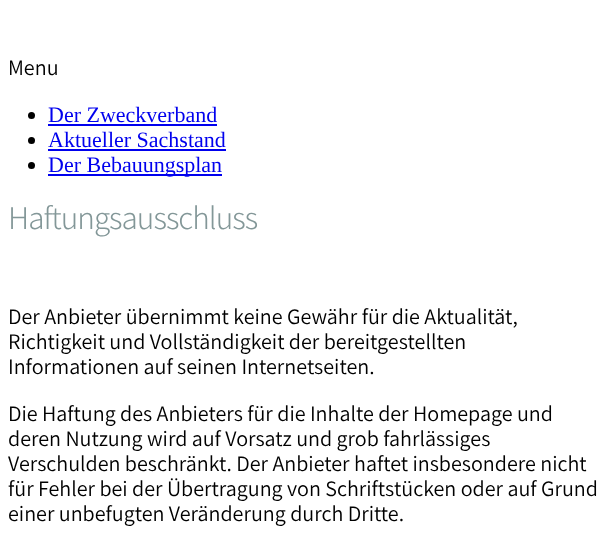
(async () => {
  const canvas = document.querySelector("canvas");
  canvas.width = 609;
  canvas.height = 550;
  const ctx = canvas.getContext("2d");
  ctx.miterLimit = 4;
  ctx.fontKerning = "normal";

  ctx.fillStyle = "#ffffff";
  ctx.fillRect(0, 0, 609, 550);
  ctx.fillStyle = "#000000";
  ctx.beginPath();
  ctx.arc(31.5, 115.5, 3.5, 0, Math.PI * 2);
  ctx.fill();
  ctx.fillStyle = "#0000ee";
  ctx.fillRect(48, 124, 169, 2);
  ctx.fillStyle = "#000000";
  ctx.beginPath();
  ctx.arc(31.5, 140.5, 3.5, 0, Math.PI * 2);
  ctx.fill();
  ctx.fillStyle = "#0000ee";
  ctx.fillRect(48, 149, 178, 2);
  ctx.fillStyle = "#000000";
  ctx.beginPath();
  ctx.arc(31.5, 165.5, 3.5, 0, Math.PI * 2);
  ctx.fill();
  ctx.fillStyle = "#0000ee";
  ctx.fillRect(48, 174, 174, 2);
  ctx.font = "22px Assistant";
  ctx.fillStyle = "#000000";
  ctx.fillText("Menu", 8, 75);
  ctx.font = "22px Liberation Serif";
  ctx.fillStyle = "#0000ee";
  for (const [text, x, y] of [
    ["Der Zweckverband", 48, 122],
    ["Aktueller Sachstand", 48, 147],
    ["Der Bebauungsplan", 48, 172],
  ]) {
    ctx.fillText(text, x, y);
  }
  ctx.letterSpacing = "-1px";
  ctx.font = "300 33px Assistant";
  ctx.fillStyle = "#839798";
  ctx.fillText("Haftungsausschluss", 8, 229);
  ctx.letterSpacing = "0px";
  ctx.font = "22px Assistant";
  ctx.fillStyle = "#000000";
  for (const [text, x, y] of [
    ["Der Anbieter übernimmt keine Gewähr für die Aktualität,", 8, 324],
    ["Richtigkeit und Vollständigkeit der bereitgestellten", 8, 349],
    ["Informationen auf seinen Internetseiten.", 8, 374],
    ["Die Haftung des Anbieters für die Inhalte der Homepage und", 8, 421],
    ["deren Nutzung wird auf Vorsatz und grob fahrlässiges", 8, 446],
    ["Verschulden beschränkt. Der Anbieter haftet insbesondere nicht", 8, 471],
    ["für Fehler bei der Übertragung von Schriftstücken oder auf Grund", 8, 496],
    ["einer unbefugten Veränderung durch Dritte.", 8, 521],
  ]) {
    ctx.fillText(text, x, y);
  }
})();
